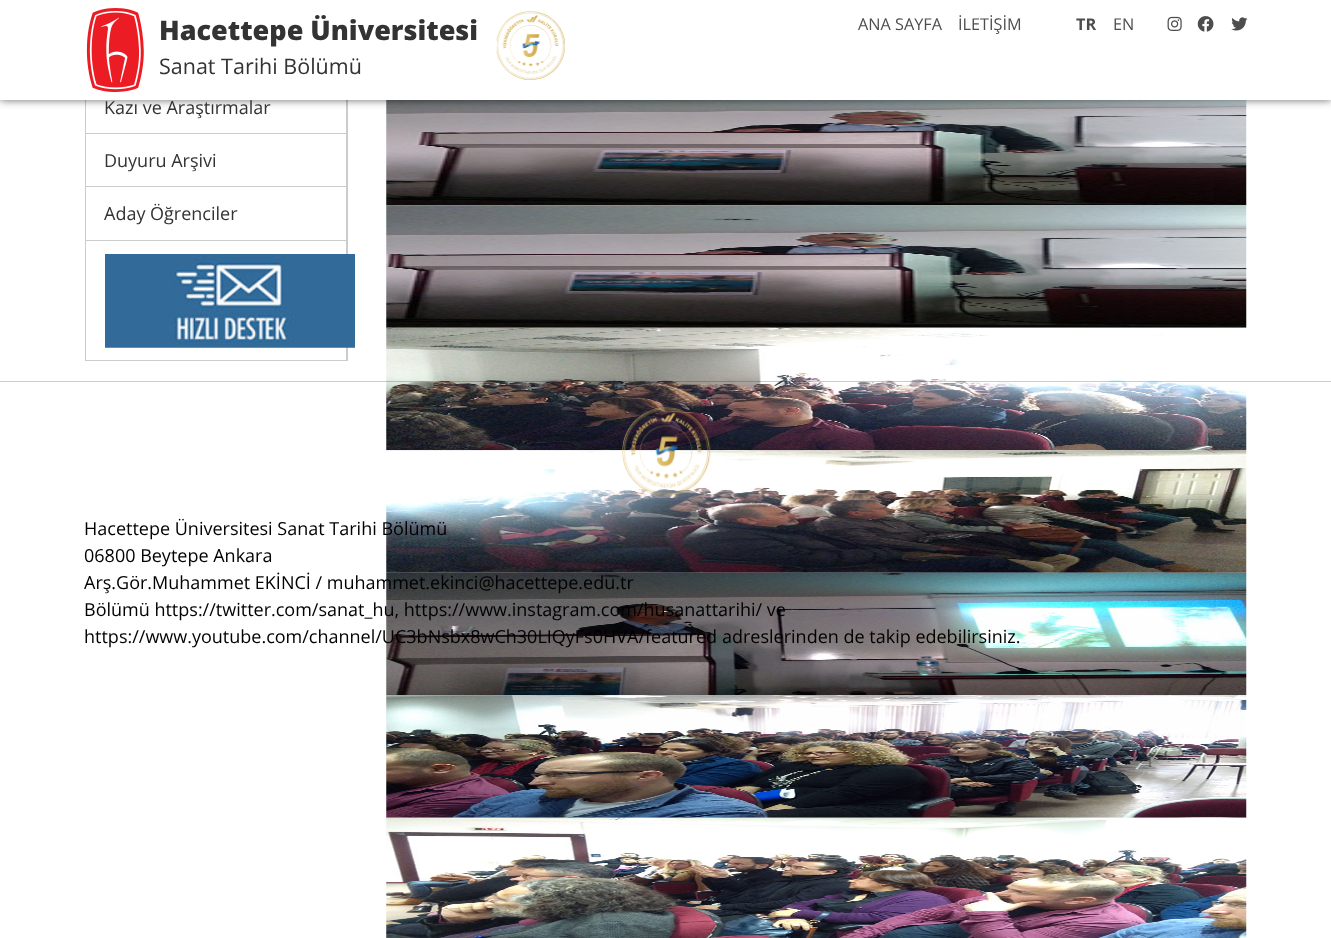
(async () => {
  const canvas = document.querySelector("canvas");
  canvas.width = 1331;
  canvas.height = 938;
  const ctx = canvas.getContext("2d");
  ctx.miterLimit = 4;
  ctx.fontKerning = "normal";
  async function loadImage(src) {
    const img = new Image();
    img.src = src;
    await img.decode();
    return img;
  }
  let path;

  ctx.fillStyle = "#ffffff";
  ctx.fillRect(0, 0, 1331, 938);
  ctx.fillStyle = "#cccccc";
  path = new Path2D("M348-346V361H346V-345Z");
  ctx.fill(path);
  path = new Path2D("M85 361V-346L86-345V361Z");
  ctx.fill(path);
  ctx.drawImage(await loadImage("img/7.png"), 386, 100, 861, 106);
  ctx.fillStyle = "rgba(0, 0, 0, 0.6)";
  ctx.filter = "blur(4px)";
  ctx.beginPath();
  ctx.rect(0, 0, 1331, 100);
  ctx.fill();
  ctx.filter = "none";
  ctx.fillStyle = "#ffffff";
  ctx.fillRect(0, 0, 1331, 100);
  ctx.drawImage(await loadImage("img/1.png"), 86, 8, 58, 84);
  ctx.drawImage(await loadImage("img/2.png"), 496, 11, 69, 69);
  ctx.drawImage(await loadImage("img/3.png"), 1167, 16, 15, 15);
  ctx.drawImage(await loadImage("img/4.png"), 1197, 16, 17, 16);
  ctx.drawImage(await loadImage("img/5.png"), 1231, 17, 17, 14);
  for (const [x, y, w, h, color] of [
    [86, 133, 260, 1, "#cccccc"],
    [86, 186, 260, 1, "#cccccc"],
    [86, 240, 260, 1, "#cccccc"],
    [86, 360, 260, 1, "#cccccc"],
  ]) {
    ctx.fillStyle = color;
    ctx.fillRect(x, y, w, h);
  }
  ctx.drawImage(await loadImage("img/6.png"), 105, 254, 250, 94);
  ctx.drawImage(await loadImage("img/8.png"), 386, 205, 861, 123);
  ctx.drawImage(await loadImage("img/9.png"), 386, 327, 861, 124);
  ctx.drawImage(await loadImage("img/10.png"), 386, 450, 861, 123);
  ctx.drawImage(await loadImage("img/11.png"), 386, 572, 861, 124);
  ctx.drawImage(await loadImage("img/12.png"), 386, 695, 861, 123);
  ctx.drawImage(await loadImage("img/13.png"), 386, 817, 861, 121);
  ctx.fillStyle = "rgba(0, 0, 0, 0.2)";
  ctx.fillRect(0, 381, 1331, 1);
  ctx.drawImage(await loadImage("img/14.png"), 622, 407, 89, 89);
  ctx.font = "800 27px Open Sans";
  ctx.fillStyle = "#333333";
  ctx.fillText("Hacettepe Üniversitesi", 159, 40);
  ctx.font = "21.5px Open Sans";
  ctx.fillText("Sanat Tarihi Bölümü", 159, 74);
  ctx.font = "16.25px Open Sans";
  ctx.fillStyle = "#4d4d4d";
  ctx.fillText("ANA SAYFA", 858, 30);
  ctx.fillText("İLETİŞİM", 958, 30);
  ctx.font = "bold 16.25px Open Sans";
  ctx.fillText("TR", 1076, 30);
  ctx.font = "16.25px Open Sans";
  ctx.fillText("EN", 1113, 30);
  ctx.font = "18px Open Sans";
  ctx.fillStyle = "#333333";
  for (const [text, x, y] of [
    ["Kazı ve Araştırmalar", 104, 114],
    ["Duyuru Arşivi", 104, 167],
    ["Aday Öğrenciler", 104, 220],
  ]) {
    ctx.fillText(text, x, y);
  }
  ctx.fillStyle = "#000000";
  for (const [text, x, y] of [
    ["Hacettepe Üniversitesi Sanat Tarihi Bölümü", 84, 535],
    ["06800 Beytepe Ankara", 84, 562],
    ["Arş.Gör.Muhammet EKİNCİ / muhammet.ekinci@hacettepe.edu.tr", 84, 589],
    ["Bölümü https://twitter.com/sanat_hu, https://www.instagram.com/husanattarihi/ ve", 84, 616],
    ["https://www.youtube.com/channel/UC3bNsbx8wCh30LIQyFs0HVA/featured", 84, 643],
    ["adreslerinden de takip edebilirsiniz.", 722, 643],
  ]) {
    ctx.fillText(text, x, y);
  }
})();
